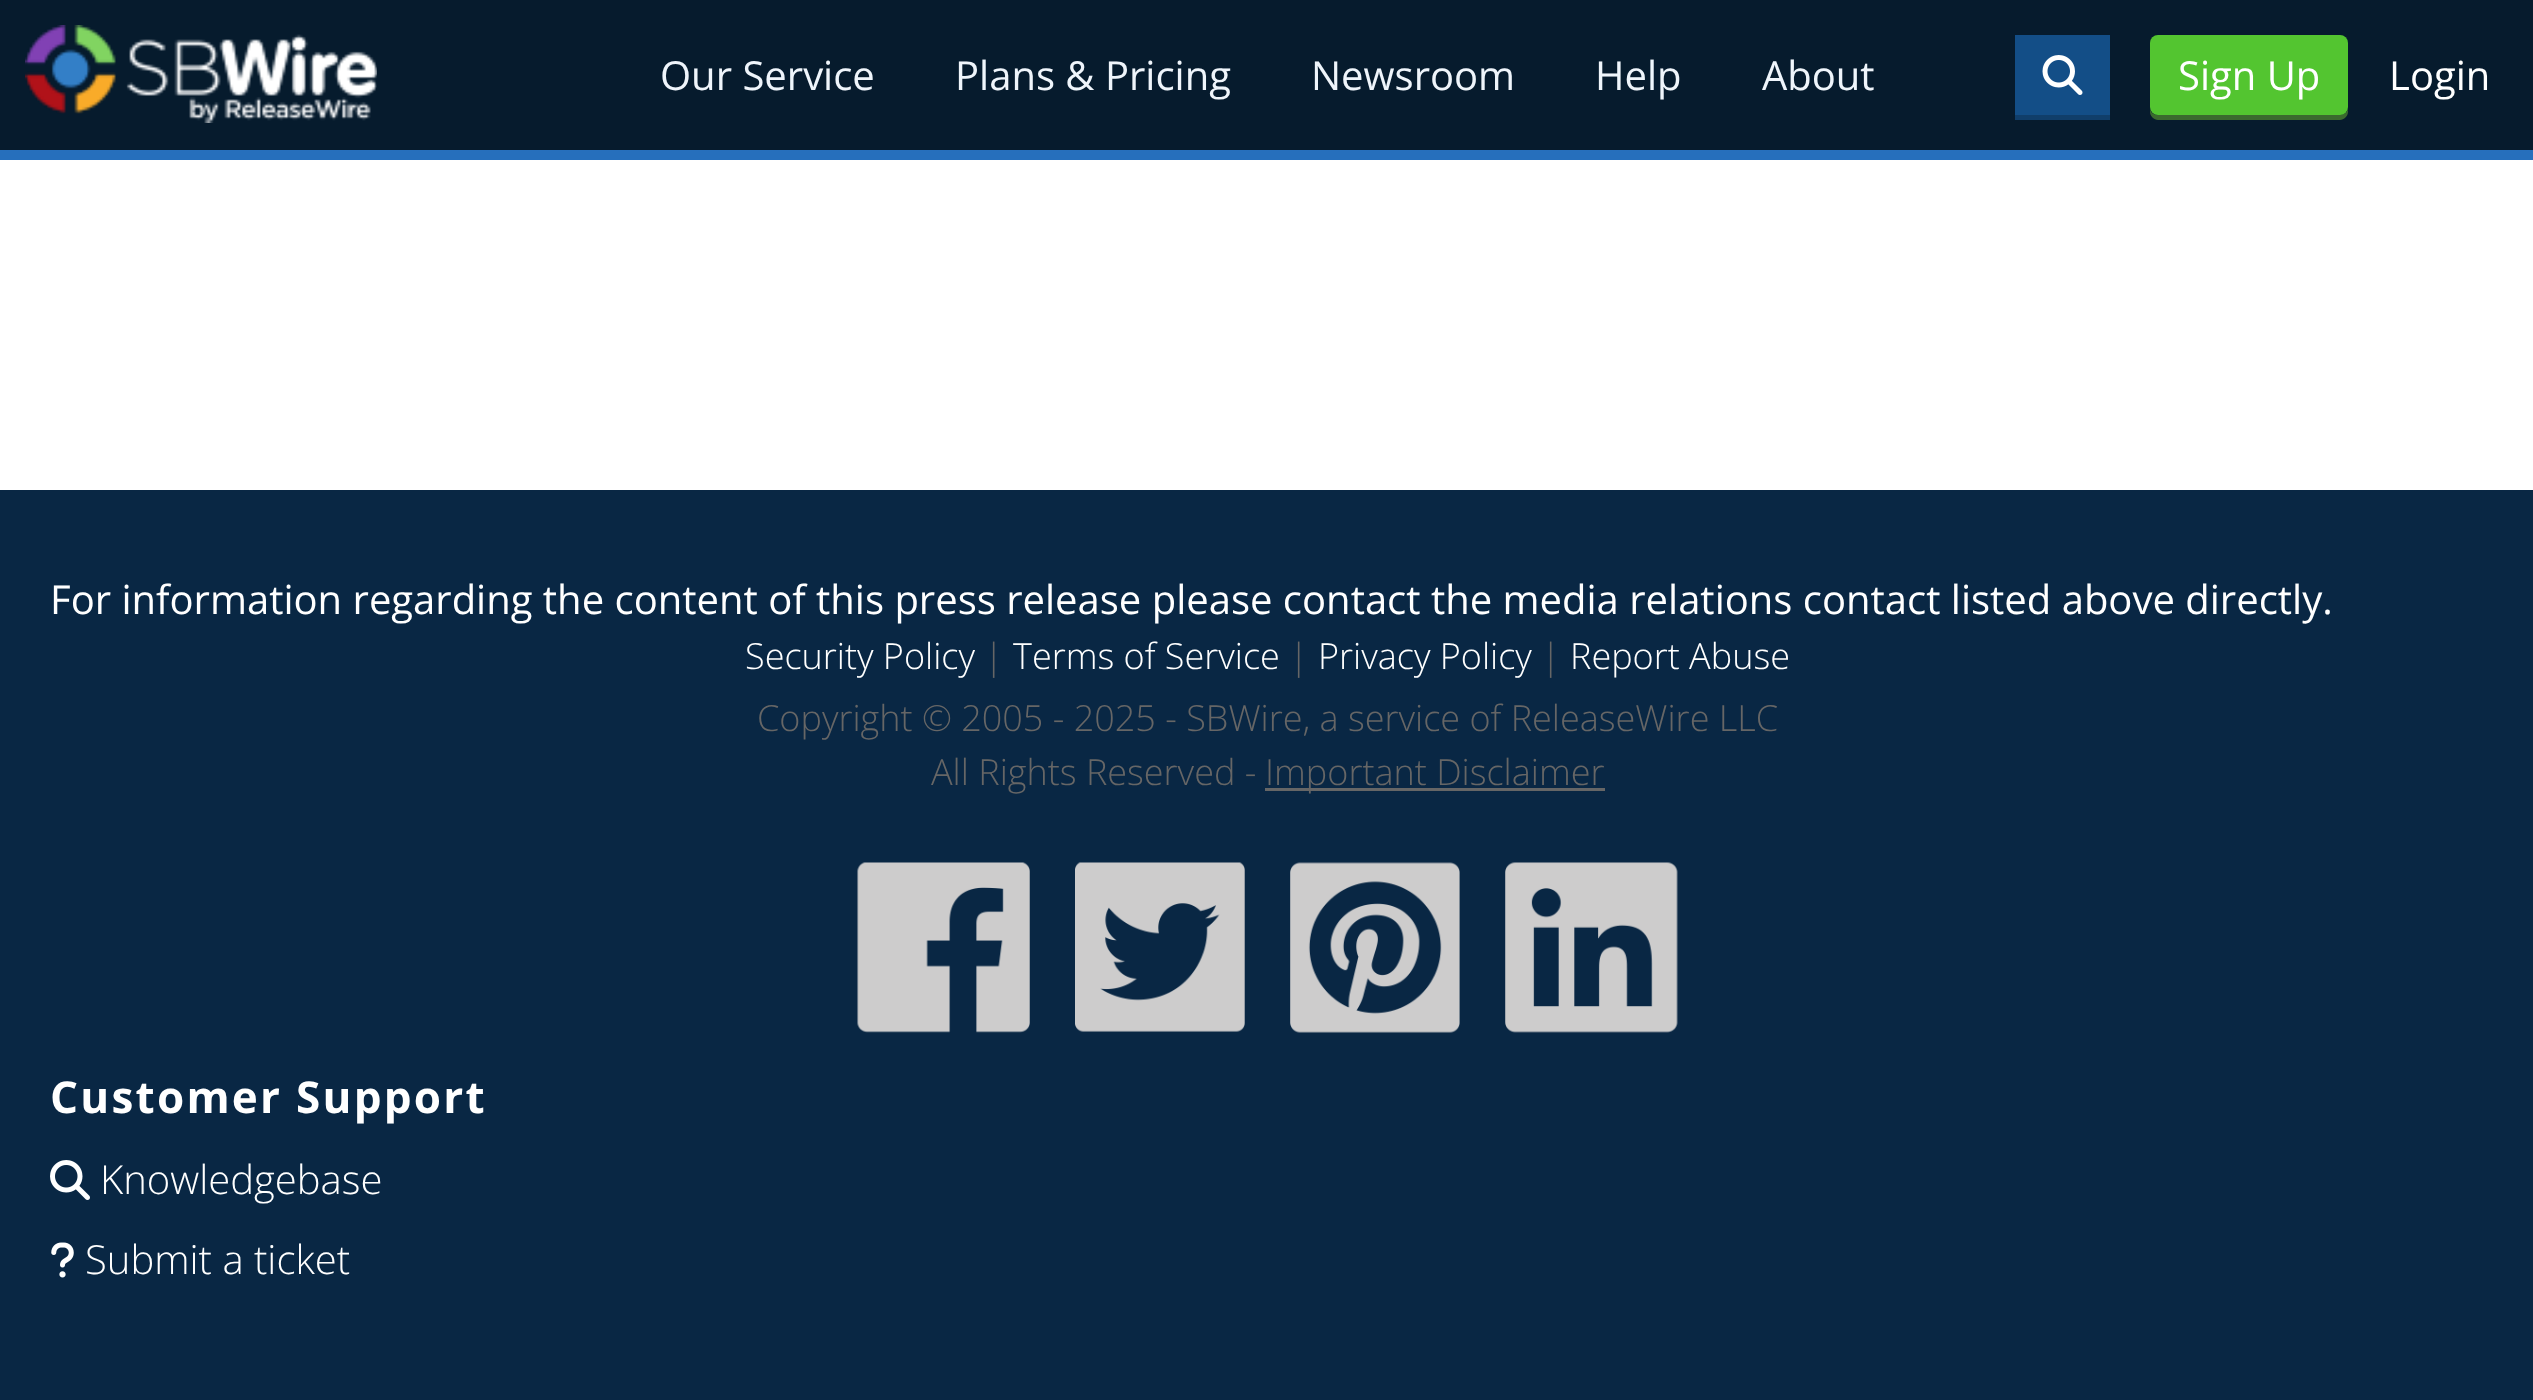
(async () => {
  const canvas = document.querySelector("canvas");
  canvas.width = 2533;
  canvas.height = 1400;
  const ctx = canvas.getContext("2d");
  ctx.miterLimit = 4;
  ctx.fontKerning = "normal";
  async function loadImage(src) {
    const img = new Image();
    img.src = src;
    await img.decode();
    return img;
  }
  let path;

  ctx.fillStyle = "#ffffff";
  ctx.fillRect(0, 0, 2533, 1400);
  ctx.fillStyle = "#061b2d";
  ctx.fillRect(0, 0, 2533, 150);
  ctx.fillStyle = "#266fbc";
  ctx.fillRect(0, 150, 2533, 10);
  ctx.drawImage(await loadImage("img/1.png"), 25, 25, 352, 98);
  ctx.fillStyle = "#103e6a";
  ctx.fillRect(2015, 115, 95, 5);
  ctx.fillStyle = "#134e87";
  ctx.fillRect(2015, 35, 95, 80);
  ctx.drawImage(await loadImage("img/2.png"), 2042, 55, 41, 40);
  ctx.fillStyle = "#3b6a2e";
  path = new Path2D("M2150 108V112C2150 116 2154 120 2158 120H2340C2344 120 2348 116 2348 112V48V45V108C2348 112 2344 115 2340 115H2158C2153 115 2150 112 2150 108Z");
  ctx.fill(path);
  ctx.fillStyle = "#53c530";
  ctx.beginPath();
  ctx.roundRect(2150, 35, 198, 80, 8);
  ctx.fill();
  ctx.fillStyle = "#092744";
  ctx.fillRect(0, 490, 2533, 910);
  ctx.fillStyle = "#666666";
  ctx.fillRect(1265, 788, 340, 3);
  ctx.drawImage(await loadImage("img/3.png"), 857, 862, 173, 171);
  ctx.drawImage(await loadImage("img/4.png"), 1075, 862, 170, 170);
  ctx.drawImage(await loadImage("img/5.png"), 1290, 862, 170, 171);
  ctx.drawImage(await loadImage("img/6.png"), 1505, 862, 173, 171);
  ctx.drawImage(await loadImage("img/7.png"), 50, 1160, 40, 40);
  ctx.drawImage(await loadImage("img/8.png"), 51, 1242, 23, 36);
  ctx.font = "40px Open Sans";
  ctx.fillStyle = "#eff5fb";
  for (const [text, x, y] of [
    ["Our Service", 660, 90],
    ["Plans & Pricing", 955, 90],
    ["Newsroom", 1311, 90],
    ["Help", 1595, 90],
    ["About", 1762, 90],
  ]) {
    ctx.fillText(text, x, y);
  }
  ctx.fillStyle = "#ffffff";
  for (const [text, x, y] of [
    ["Sign Up", 2178, 90],
    ["Login", 2389, 90],
    ["For information regarding the content of this press release please contact the media relations contact listed above directly.", 50, 614],
  ]) {
    ctx.fillText(text, x, y);
  }
  ctx.font = "300 36px Open Sans";
  ctx.fillText("Security Policy", 745, 669);
  ctx.fillStyle = "#666666";
  ctx.fillText("|", 984, 669);
  ctx.fillStyle = "#ffffff";
  ctx.fillText("Terms of Service", 1013, 669);
  ctx.fillStyle = "#666666";
  ctx.fillText("|", 1289, 669);
  ctx.fillStyle = "#ffffff";
  ctx.fillText("Privacy Policy", 1318, 669);
  ctx.fillStyle = "#666666";
  ctx.fillText("|", 1541, 669);
  ctx.fillStyle = "#ffffff";
  ctx.fillText("Report Abuse", 1570, 669);
  ctx.fillStyle = "#666666";
  for (const [text, x, y] of [
    ["Copyright © 2005 - 2025 - SBWire, a service of ReleaseWire LLC", 757, 731],
    ["All Rights Reserved -", 931, 785],
    ["Important Disclaimer", 1265, 785],
  ]) {
    ctx.fillText(text, x, y);
  }
  ctx.letterSpacing = "2.25px";
  ctx.font = "bold 44px Open Sans";
  ctx.fillStyle = "#ffffff";
  ctx.fillText("Customer Support", 50, 1113);
  ctx.letterSpacing = "0px";
  ctx.font = "300 40px Open Sans";
  ctx.fillText("Knowledgebase", 100, 1194);
  ctx.fillText("Submit a ticket", 85, 1274);
})();
